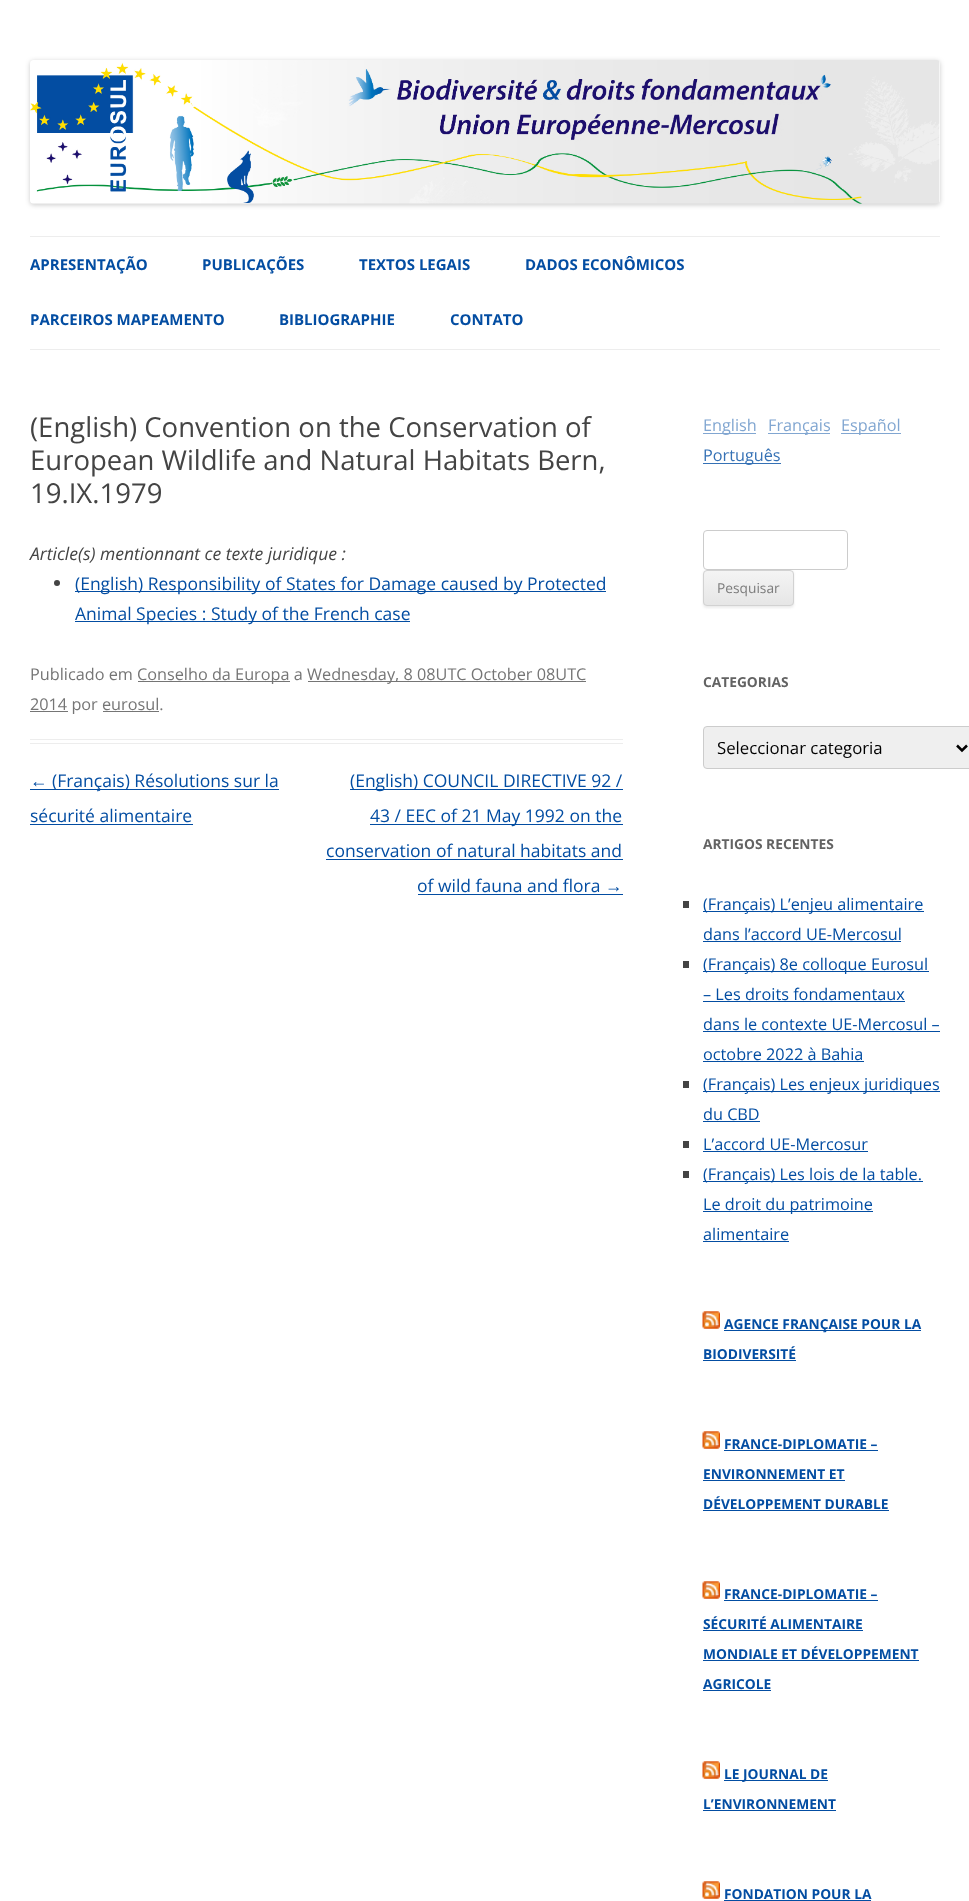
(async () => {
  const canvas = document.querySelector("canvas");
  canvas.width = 969;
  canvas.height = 1901;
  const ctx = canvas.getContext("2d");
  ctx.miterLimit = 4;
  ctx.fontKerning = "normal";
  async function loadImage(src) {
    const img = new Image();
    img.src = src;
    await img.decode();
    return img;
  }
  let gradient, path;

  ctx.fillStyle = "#ffffff";
  ctx.fillRect(0, 0, 969, 1901);
  ctx.fillStyle = "rgba(0, 0, 0, 0.2)";
  ctx.filter = "blur(2.5px)";
  ctx.beginPath();
  ctx.roundRect(30, 61, 910, 144, 4);
  ctx.fill();
  ctx.filter = "none";
  ctx.drawImage(await loadImage("img/1.png"), 30, 60, 910, 144);
  for (const [x, y, w, h, color] of [
    [30, 236, 910, 1, "#ededed"],
    [30, 349, 910, 1, "#ededed"],
    [30, 739, 593, 1, "#ededed"],
    [30, 743, 593, 1, "#ededed"],
  ]) {
    ctx.fillStyle = color;
    ctx.fillRect(x, y, w, h);
  }
  ctx.fillStyle = "#444444";
  ctx.beginPath();
  ctx.arc(57, 583, 3, 0, Math.PI * 2);
  ctx.fill();
  for (const [x, y, w, h, color] of [
    [75, 591, 531, 1, "#034da2"],
    [75, 621, 335, 1, "#034da2"],
    [138, 681, 152, 1, "#757575"],
    [308, 681, 278, 1, "#757575"],
    [30, 711, 38, 1, "#757575"],
    [103, 711, 56, 1, "#757575"],
    [30, 789, 249, 1, "#034da2"],
    [30, 824, 163, 1, "#034da2"],
    [350, 789, 273, 1, "#034da2"],
    [370, 824, 253, 1, "#034da2"],
    [326, 859, 297, 1, "#034da2"],
    [418, 894, 205, 1, "#034da2"],
    [703, 433, 53, 1, "#81a6d1"],
    [768, 433, 62, 1, "#81a6d1"],
    [841, 433, 60, 1, "#81a6d1"],
    [703, 463, 78, 1, "#3571b5"],
  ]) {
    ctx.fillStyle = color;
    ctx.fillRect(x, y, w, h);
  }
  ctx.beginPath();
  ctx.roundRect(703.5, 530.5, 144, 39, 3.5);
  ctx.strokeStyle = "#cccccc";
  ctx.stroke();
  ctx.fillStyle = "rgba(64, 64, 64, 0.1)";
  ctx.filter = "blur(1px)";
  ctx.beginPath();
  ctx.roundRect(703, 571, 91, 37, 4);
  ctx.fill();
  ctx.filter = "none";
  ctx.save();
  ctx.beginPath();
  ctx.roundRect(703, 570, 91, 36, 4);
  ctx.clip();
  gradient = ctx.createLinearGradient(748, 571, 748, 605);
  gradient.addColorStop(0, "#f4f4f4");
  gradient.addColorStop(1, "#e6e6e6");
  ctx.fillStyle = gradient;
  ctx.fillRect(703, 571, 91, 34);
  ctx.restore();
  ctx.beginPath();
  ctx.roundRect(703.5, 570.5, 90, 35, 3.5);
  ctx.strokeStyle = "#d2d2d2";
  ctx.stroke();
  ctx.fillStyle = "#efefef";
  ctx.beginPath();
  ctx.roundRect(703.5, 726.5, 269, 42, 3.5);
  ctx.fill();
  ctx.strokeStyle = "#cccccc";
  ctx.stroke();
  path = new Path2D("M957 745.5L962 750.5L967 745.5");
  ctx.strokeStyle = "#000000";
  ctx.lineWidth = 2.5;
  ctx.stroke(path);
  for (const [x, y, w, h, color] of [
    [683, 901, 6, 7, "#444444"],
    [703, 911, 221, 1, "#034da2"],
    [703, 941, 198, 1, "#034da2"],
    [683, 961, 6, 7, "#444444"],
    [703, 971, 226, 1, "#034da2"],
    [703, 1001, 202, 1, "#034da2"],
    [703, 1031, 237, 1, "#034da2"],
    [703, 1061, 161, 1, "#034da2"],
    [683, 1081, 6, 7, "#444444"],
    [703, 1091, 237, 1, "#034da2"],
    [703, 1121, 57, 1, "#034da2"],
    [683, 1141, 6, 7, "#444444"],
    [703, 1151, 165, 1, "#034da2"],
    [683, 1171, 6, 7, "#444444"],
    [703, 1181, 220, 1, "#034da2"],
    [703, 1211, 170, 1, "#034da2"],
    [703, 1241, 86, 1, "#034da2"],
  ]) {
    ctx.fillStyle = color;
    ctx.fillRect(x, y, w, h);
  }
  ctx.drawImage(await loadImage("img/2.png"), 702, 1311, 18, 18);
  ctx.fillRect(724, 1330, 197, 1);
  ctx.fillRect(703, 1360, 93, 1);
  ctx.drawImage(await loadImage("img/2.png"), 702, 1431, 18, 18);
  for (const [x, y, w, h, color] of [
    [724, 1450, 154, 1, "#034da2"],
    [703, 1480, 142, 1, "#034da2"],
    [703, 1510, 186, 1, "#034da2"],
  ]) {
    ctx.fillStyle = color;
    ctx.fillRect(x, y, w, h);
  }
  ctx.drawImage(await loadImage("img/2.png"), 702, 1581, 18, 18);
  for (const [x, y, w, h, color] of [
    [724, 1600, 154, 1, "#034da2"],
    [703, 1630, 160, 1, "#034da2"],
    [703, 1660, 216, 1, "#034da2"],
    [703, 1690, 68, 1, "#034da2"],
  ]) {
    ctx.fillStyle = color;
    ctx.fillRect(x, y, w, h);
  }
  ctx.drawImage(await loadImage("img/2.png"), 702, 1761, 18, 18);
  ctx.fillRect(724, 1780, 104, 1);
  ctx.fillRect(703, 1810, 133, 1);
  ctx.drawImage(await loadImage("img/2.png"), 702, 1881, 18, 18);
  ctx.fillRect(724, 1900, 147, 1);
  ctx.font = "bold 15px Open Sans";
  for (const [text, x, y] of [
    ["APRESENTAÇÃO", 30, 270],
    ["PUBLICAÇÕES", 202, 270],
    ["TEXTOS LEGAIS", 359, 270],
    ["DADOS ECONÔMICOS", 525, 270],
    ["PARCEIROS MAPEAMENTO", 30, 325],
    ["BIBLIOGRAPHIE", 279, 325],
    ["CONTATO", 450, 325],
  ]) {
    ctx.fillText(text, x, y);
  }
  ctx.font = "27.5px Open Sans";
  ctx.fillStyle = "#444444";
  for (const [text, x, y] of [
    ["(English) Convention on the Conservation of", 30, 437],
    ["European Wildlife and Natural Habitats Bern,", 30, 470],
    ["19.IX.1979", 30, 503],
  ]) {
    ctx.fillText(text, x, y);
  }
  ctx.font = "italic 17.5px Open Sans";
  ctx.fillText("Article(s) mentionnant ce texte juridique :", 30, 560);
  ctx.font = "17.5px Open Sans";
  ctx.fillStyle = "#034da2";
  ctx.fillText("(English) Responsibility of States for Damage caused by Protected", 75, 590);
  ctx.fillText("Animal Species : Study of the French case", 75, 620);
  ctx.font = "16.25px Open Sans";
  ctx.fillStyle = "#757575";
  for (const [text, x, y] of [
    ["Publicado em", 30, 680],
    ["Conselho da Europa a", 137, 680],
    ["Wednesday, 8 08UTC October 08UTC", 307, 680],
    ["2014 por eurosul.", 30, 710],
  ]) {
    ctx.fillText(text, x, y);
  }
  ctx.font = "17.5px Liberation Sans";
  ctx.fillStyle = "#034da2";
  ctx.fillText("←", 30, 787);
  ctx.font = "17.5px Open Sans";
  for (const [text, x, y] of [
    ["(Français) Résolutions sur la", 52, 787],
    ["sécurité alimentaire", 30, 822],
    ["(English) COUNCIL DIRECTIVE 92 /", 350, 787],
    ["43 / EEC of 21 May 1992 on the", 370, 822],
    ["conservation of natural habitats and", 326, 857],
    ["of wild fauna and flora", 417, 892],
  ]) {
    ctx.fillText(text, x, y);
  }
  ctx.font = "17.5px Liberation Sans";
  ctx.fillText("→", 605, 892);
  ctx.font = "16.25px Open Sans";
  ctx.fillStyle = "#81a6d1";
  for (const [text, x, y] of [
    ["English", 703, 431],
    ["Français", 768, 431],
    ["Español", 841, 431],
  ]) {
    ctx.fillText(text, x, y);
  }
  ctx.fillStyle = "#3571b5";
  ctx.fillText("Português", 703, 461);
  ctx.font = "13.75px Open Sans";
  ctx.fillStyle = "#7c7c7c";
  ctx.fillText("Pesquisar", 717, 593);
  ctx.font = "bold 13.75px Open Sans";
  ctx.fillStyle = "#636363";
  ctx.fillText("CATEGORIAS", 703, 687);
  ctx.font = "16.75px Open Sans";
  ctx.fillStyle = "#000000";
  ctx.fillText("Seleccionar categoria", 717, 754);
  ctx.font = "bold 13.75px Open Sans";
  ctx.fillStyle = "#636363";
  ctx.fillText("ARTIGOS RECENTES", 703, 849);
  ctx.font = "16.25px Open Sans";
  ctx.fillStyle = "#034da2";
  for (const [text, x, y] of [
    ["(Français) L’enjeu alimentaire", 703, 910],
    ["dans l’accord UE-Mercosul", 703, 940],
    ["(Français) 8e colloque Eurosul", 703, 970],
    ["– Les droits fondamentaux", 703, 1000],
    ["dans le contexte UE-Mercosul –", 703, 1030],
    ["octobre 2022 à Bahia", 703, 1060],
    ["(Français) Les enjeux juridiques", 703, 1090],
    ["du CBD", 703, 1120],
    ["L’accord UE-Mercosur", 703, 1150],
    ["(Français) Les lois de la table.", 703, 1180],
    ["Le droit du patrimoine", 703, 1210],
    ["alimentaire", 703, 1240],
  ]) {
    ctx.fillText(text, x, y);
  }
  ctx.font = "bold 13.75px Open Sans";
  for (const [text, x, y] of [
    ["AGENCE FRANÇAISE POUR LA", 724, 1329],
    ["BIODIVERSITÉ", 703, 1359],
    ["FRANCE-DIPLOMATIE –", 724, 1449],
    ["ENVIRONNEMENT ET", 703, 1479],
    ["DÉVELOPPEMENT DURABLE", 703, 1509],
    ["FRANCE-DIPLOMATIE –", 724, 1599],
    ["SÉCURITÉ ALIMENTAIRE", 703, 1629],
    ["MONDIALE ET DÉVELOPPEMENT", 703, 1659],
    ["AGRICOLE", 703, 1689],
    ["LE JOURNAL DE", 724, 1779],
    ["L’ENVIRONNEMENT", 703, 1809],
    ["FONDATION POUR LA", 724, 1899],
  ]) {
    ctx.fillText(text, x, y);
  }
})();
